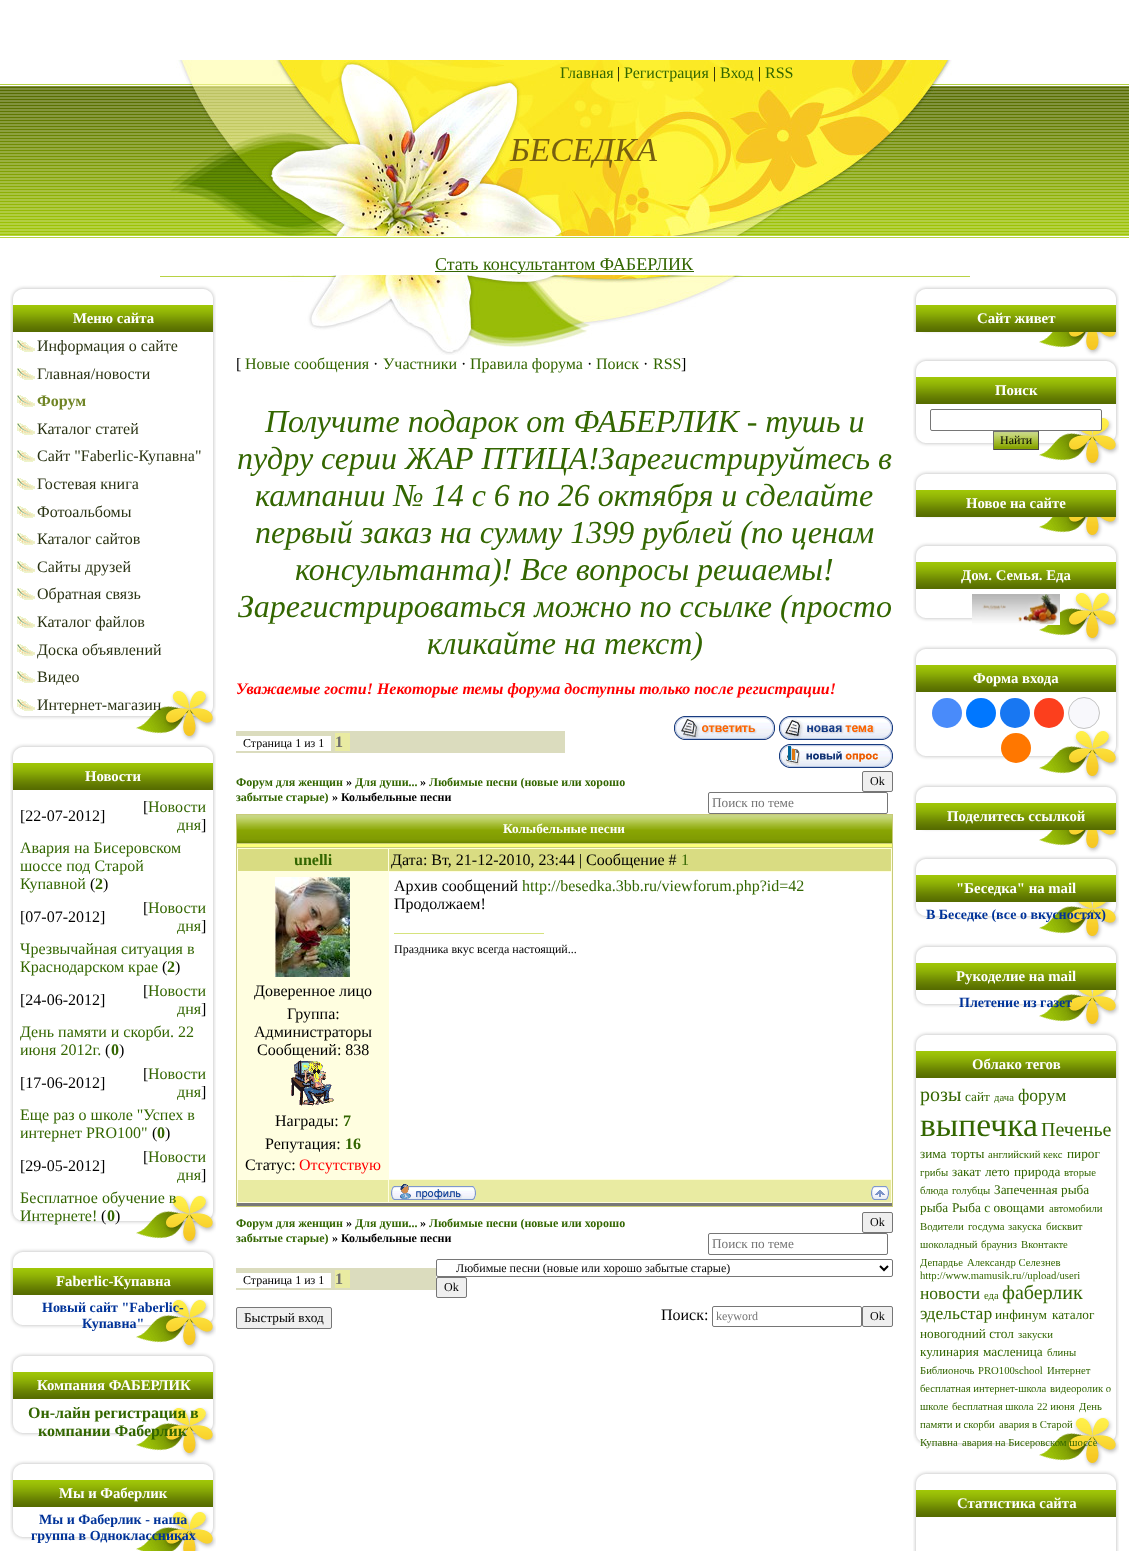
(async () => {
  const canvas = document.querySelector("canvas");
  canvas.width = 1129;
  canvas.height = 1551;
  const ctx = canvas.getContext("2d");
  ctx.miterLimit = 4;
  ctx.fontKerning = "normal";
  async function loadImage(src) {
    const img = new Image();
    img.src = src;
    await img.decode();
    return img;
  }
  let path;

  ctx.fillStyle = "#ffffff";
  ctx.fillRect(0, 0, 1129, 1551);
  ctx.drawImage(await loadImage("img/1.png"), 0, 84, 1129, 154);
  ctx.drawImage(await loadImage("img/2.png"), 176, 60, 776, 26);
  ctx.drawImage(await loadImage("img/3.png"), 160, 86, 810, 150);
  ctx.fillStyle = "#336600";
  ctx.fillRect(435, 271, 259, 1);
  ctx.drawImage(await loadImage("img/4.png"), 160, 275, 810, 80);
  ctx.drawImage(await loadImage("img/5.png"), 10, 332, 206, 358);
  ctx.drawImage(await loadImage("img/6.png"), 10, 285, 206, 47);
  ctx.drawImage(await loadImage("img/7.png"), 10, 690, 206, 53);
  ctx.drawImage(await loadImage("img/8.png"), 17, 340, 18, 12);
  ctx.drawImage(await loadImage("img/8.png"), 17, 368, 18, 12);
  ctx.drawImage(await loadImage("img/8.png"), 17, 395, 18, 12);
  ctx.drawImage(await loadImage("img/8.png"), 17, 423, 18, 12);
  ctx.drawImage(await loadImage("img/8.png"), 17, 450, 18, 12);
  ctx.drawImage(await loadImage("img/8.png"), 17, 478, 18, 12);
  ctx.drawImage(await loadImage("img/8.png"), 17, 506, 18, 12);
  ctx.drawImage(await loadImage("img/8.png"), 17, 533, 18, 12);
  ctx.drawImage(await loadImage("img/8.png"), 17, 561, 18, 12);
  ctx.drawImage(await loadImage("img/8.png"), 17, 588, 18, 12);
  ctx.drawImage(await loadImage("img/8.png"), 17, 616, 18, 12);
  ctx.drawImage(await loadImage("img/8.png"), 17, 644, 18, 12);
  ctx.drawImage(await loadImage("img/8.png"), 17, 671, 18, 12);
  ctx.drawImage(await loadImage("img/8.png"), 17, 699, 18, 12);
  ctx.drawImage(await loadImage("img/9.png"), 10, 790, 206, 405);
  ctx.drawImage(await loadImage("img/6.png"), 10, 743, 206, 47);
  ctx.drawImage(await loadImage("img/7.png"), 10, 1195, 206, 53);
  ctx.drawImage(await loadImage("img/10.png"), 10, 1295, 206, 4);
  ctx.drawImage(await loadImage("img/6.png"), 10, 1248, 206, 47);
  ctx.drawImage(await loadImage("img/7.png"), 10, 1299, 206, 53);
  ctx.drawImage(await loadImage("img/11.png"), 10, 1399, 206, 8);
  ctx.drawImage(await loadImage("img/6.png"), 10, 1352, 206, 47);
  ctx.drawImage(await loadImage("img/7.png"), 10, 1407, 206, 53);
  ctx.drawImage(await loadImage("img/10.png"), 10, 1507, 206, 4);
  ctx.drawImage(await loadImage("img/6.png"), 10, 1460, 206, 47);
  ctx.drawImage(await loadImage("img/12.png"), 10, 1511, 206, 40);
  for (const [x, y, w, h, color] of [
    [236, 731, 329, 22, "#dbdcbe"],
    [236, 736, 95, 15, "#ffffff"],
    [335, 733, 15, 18, "#e9eba2"],
  ]) {
    ctx.fillStyle = color;
    ctx.fillRect(x, y, w, h);
  }
  ctx.drawImage(await loadImage("img/13.png"), 674, 716, 101, 24);
  ctx.drawImage(await loadImage("img/14.png"), 779, 716, 114, 24);
  ctx.drawImage(await loadImage("img/15.png"), 779, 744, 114, 24);
  ctx.fillStyle = "#efefef";
  ctx.beginPath();
  ctx.roundRect(862.5, 771.5, 30, 20, 1.5);
  ctx.fill();
  ctx.strokeStyle = "#767676";
  ctx.stroke();
  ctx.beginPath();
  ctx.roundRect(708.5, 792.5, 179, 21, 1.5);
  ctx.stroke();
  ctx.fillStyle = "#c8cb78";
  ctx.fillRect(236, 814, 657, 393);
  ctx.drawImage(await loadImage("img/16.png"), 237, 815, 655, 28);
  for (const [x, y, w, h, color] of [
    [237, 844, 655, 3, "#fcff7c"],
    [237, 848, 655, 355, "#fffee0"],
    [237, 1203, 655, 3, "#787878"],
    [238, 849, 150, 22, "#d9dc82"],
    [389, 849, 502, 22, "#d9dc82"],
    [389, 872, 502, 307, "#ffffff"],
    [394, 933, 150, 1, "#d6e37d"],
  ]) {
    ctx.fillStyle = color;
    ctx.fillRect(x, y, w, h);
  }
  ctx.drawImage(await loadImage("img/17.png"), 275, 877, 75, 100);
  ctx.drawImage(await loadImage("img/18.png"), 291, 1060, 43, 46);
  ctx.fillStyle = "#e9eba2";
  ctx.fillRect(238, 1180, 150, 22);
  ctx.fillRect(389, 1180, 502, 22);
  ctx.drawImage(await loadImage("img/19.png"), 391, 1184, 85, 16);
  ctx.drawImage(await loadImage("img/20.png"), 871, 1186, 18, 14);
  ctx.fillStyle = "#efefef";
  ctx.beginPath();
  ctx.roundRect(862.5, 1212.5, 30, 20, 1.5);
  ctx.fill();
  ctx.stroke();
  ctx.beginPath();
  ctx.roundRect(708.5, 1233.5, 179, 21, 1.5);
  ctx.stroke();
  for (const [x, y, w, h, color] of [
    [236, 1268, 200, 22, "#dbdcbe"],
    [236, 1273, 95, 15, "#ffffff"],
    [335, 1270, 15, 18, "#e9eba2"],
  ]) {
    ctx.fillStyle = color;
    ctx.fillRect(x, y, w, h);
  }
  ctx.beginPath();
  ctx.roundRect(436.5, 1259.5, 456, 17, 1.5);
  ctx.stroke();
  path = new Path2D("M880 1266L884 1270L888 1266");
  ctx.strokeStyle = "#000000";
  ctx.lineWidth = 2;
  ctx.stroke(path);
  ctx.fillStyle = "#efefef";
  ctx.beginPath();
  ctx.roundRect(436.5, 1277.5, 30, 20, 1.5);
  ctx.fill();
  ctx.strokeStyle = "#767676";
  ctx.lineWidth = 1;
  ctx.stroke();
  ctx.beginPath();
  ctx.roundRect(236.5, 1307.5, 95, 21, 1.5);
  ctx.fill();
  ctx.stroke();
  ctx.beginPath();
  ctx.roundRect(712.5, 1306.5, 149, 20, 1.5);
  ctx.stroke();
  ctx.beginPath();
  ctx.roundRect(862.5, 1306.5, 30, 20, 1.5);
  ctx.fill();
  ctx.stroke();
  ctx.drawImage(await loadImage("img/6.png"), 913, 285, 206, 47);
  ctx.drawImage(await loadImage("img/21.png"), 913, 332, 206, 25);
  ctx.drawImage(await loadImage("img/22.png"), 913, 404, 206, 13);
  ctx.drawImage(await loadImage("img/6.png"), 913, 357, 206, 47);
  ctx.drawImage(await loadImage("img/7.png"), 913, 417, 206, 53);
  ctx.fillStyle = "#ffffff";
  ctx.beginPath();
  ctx.roundRect(930.5, 409.5, 171, 21, 1.5);
  ctx.fill();
  ctx.stroke();
  ctx.fillStyle = "#87a303";
  ctx.fillRect(994, 447, 44, 2);
  ctx.drawImage(await loadImage("img/23.png"), 994, 432, 44, 15);
  for (const [x, y, w, h, color] of [
    [993, 431, 46, 1, "#6e6e6e"],
    [1038, 431, 1, 19, "#494949"],
    [993, 449, 46, 1, "#494949"],
    [993, 431, 1, 19, "#6e6e6e"],
  ]) {
    ctx.fillStyle = color;
    ctx.fillRect(x, y, w, h);
  }
  ctx.drawImage(await loadImage("img/6.png"), 913, 470, 206, 47);
  ctx.drawImage(await loadImage("img/21.png"), 913, 517, 206, 25);
  ctx.drawImage(await loadImage("img/24.png"), 913, 589, 206, 3);
  ctx.drawImage(await loadImage("img/6.png"), 913, 542, 206, 47);
  ctx.drawImage(await loadImage("img/7.png"), 913, 592, 206, 53);
  ctx.drawImage(await loadImage("img/25.png"), 972, 594, 88, 31);
  ctx.drawImage(await loadImage("img/26.png"), 913, 692, 206, 38);
  ctx.drawImage(await loadImage("img/6.png"), 913, 645, 206, 47);
  ctx.drawImage(await loadImage("img/7.png"), 913, 730, 206, 53);
  ctx.fillStyle = "#498bfa";
  ctx.beginPath();
  ctx.arc(947, 713, 15, 0, Math.PI * 2);
  ctx.fill();
  ctx.fillStyle = "#0077ff";
  ctx.beginPath();
  ctx.arc(981, 713, 15, 0, Math.PI * 2);
  ctx.fill();
  ctx.fillStyle = "#1877f2";
  ctx.beginPath();
  ctx.arc(1015, 713, 15, 0, Math.PI * 2);
  ctx.fill();
  ctx.fillStyle = "#fc3f1d";
  ctx.beginPath();
  ctx.arc(1049, 713, 15, 0, Math.PI * 2);
  ctx.fill();
  ctx.fillStyle = "#f8f8fc";
  ctx.beginPath();
  ctx.arc(1084, 713, 15.5, 0, Math.PI * 2);
  ctx.fill();
  ctx.strokeStyle = "#c4c4c4";
  ctx.stroke();
  ctx.fillStyle = "#ff7700";
  ctx.beginPath();
  ctx.arc(1016, 748, 15, 0, Math.PI * 2);
  ctx.fill();
  ctx.drawImage(await loadImage("img/6.png"), 913, 783, 206, 47);
  ctx.drawImage(await loadImage("img/21.png"), 913, 830, 206, 25);
  ctx.drawImage(await loadImage("img/6.png"), 913, 855, 206, 47);
  ctx.drawImage(await loadImage("img/27.png"), 913, 902, 206, 41);
  ctx.drawImage(await loadImage("img/6.png"), 913, 943, 206, 47);
  ctx.drawImage(await loadImage("img/27.png"), 913, 990, 206, 41);
  ctx.drawImage(await loadImage("img/28.png"), 913, 1078, 206, 339);
  ctx.drawImage(await loadImage("img/6.png"), 913, 1031, 206, 47);
  ctx.drawImage(await loadImage("img/7.png"), 913, 1417, 206, 53);
  ctx.drawImage(await loadImage("img/29.png"), 913, 1517, 206, 34);
  ctx.drawImage(await loadImage("img/6.png"), 913, 1470, 206, 47);
  ctx.font = "16px Liberation Serif";
  ctx.fillStyle = "#336600";
  ctx.fillText("Главная", 560, 78);
  ctx.fillStyle = "#000000";
  ctx.fillText("|", 617, 78);
  ctx.fillStyle = "#336600";
  ctx.fillText("Регистрация", 624, 78);
  ctx.fillStyle = "#000000";
  ctx.fillText("|", 713, 78);
  ctx.fillStyle = "#336600";
  ctx.fillText("Вход", 720, 78);
  ctx.fillStyle = "#000000";
  ctx.fillText("|", 758, 78);
  ctx.fillStyle = "#336600";
  ctx.fillText("RSS", 765, 78);
  ctx.font = "italic 33.5px Liberation Serif";
  ctx.fillStyle = "#775f10";
  ctx.fillText("БЕСЕДКА", 510, 161);
  ctx.font = "18px Liberation Serif";
  ctx.fillStyle = "#336600";
  ctx.fillText("Стать консультантом ФАБЕРЛИК", 435, 270);
  ctx.font = "bold 14.75px Liberation Serif";
  ctx.fillStyle = "#ffffff";
  ctx.fillText("Меню сайта", 73, 323);
  ctx.font = "16px Liberation Serif";
  ctx.fillStyle = "#2b3414";
  ctx.fillText("Информация о сайте", 37, 351);
  ctx.fillText("Главная/новости", 37, 379);
  ctx.font = "bold 16px Liberation Serif";
  ctx.fillStyle = "#708525";
  ctx.fillText("Форум", 37, 406);
  ctx.font = "16px Liberation Serif";
  ctx.fillStyle = "#2b3414";
  for (const [text, x, y] of [
    ["Каталог статей", 37, 434],
    ["Сайт \"Faberlic-Купавна\"", 37, 461],
    ["Гостевая книга", 37, 489],
    ["Фотоальбомы", 37, 517],
    ["Каталог сайтов", 37, 544],
    ["Сайты друзей", 37, 572],
    ["Обратная связь", 37, 599],
    ["Каталог файлов", 37, 627],
    ["Доска объявлений", 37, 655],
    ["Видео", 37, 682],
    ["Интернет-магазин", 37, 710],
  ]) {
    ctx.fillText(text, x, y);
  }
  ctx.font = "bold 14.75px Liberation Serif";
  ctx.fillStyle = "#ffffff";
  ctx.fillText("Новости", 85, 781);
  ctx.font = "16px Liberation Serif";
  ctx.fillStyle = "#000000";
  ctx.fillText("[22-07-2012]", 20, 821);
  ctx.fillText("[", 143, 812);
  ctx.fillStyle = "#336600";
  ctx.fillText("Новости", 148, 812);
  ctx.fillText("дня", 177, 830);
  ctx.fillStyle = "#000000";
  ctx.fillText("]", 201, 830);
  ctx.fillStyle = "#336600";
  for (const [text, x, y] of [
    ["Авария на Бисеровском", 20, 853],
    ["шоссе под Старой", 20, 871],
    ["Купавной", 20, 889],
  ]) {
    ctx.fillText(text, x, y);
  }
  ctx.fillStyle = "#000000";
  ctx.fillText("(", 90, 889);
  ctx.font = "bold 16px Liberation Serif";
  ctx.fillStyle = "#336600";
  ctx.fillText("2", 95, 889);
  ctx.font = "16px Liberation Serif";
  ctx.fillStyle = "#000000";
  for (const [text, x, y] of [
    [")", 103, 889],
    ["[07-07-2012]", 20, 922],
    ["[", 143, 913],
  ]) {
    ctx.fillText(text, x, y);
  }
  ctx.fillStyle = "#336600";
  ctx.fillText("Новости", 148, 913);
  ctx.fillText("дня", 177, 931);
  ctx.fillStyle = "#000000";
  ctx.fillText("]", 201, 931);
  ctx.fillStyle = "#336600";
  ctx.fillText("Чрезвычайная ситуация в", 20, 954);
  ctx.fillText("Краснодарском крае", 20, 972);
  ctx.fillStyle = "#000000";
  ctx.fillText("(", 162, 972);
  ctx.font = "bold 16px Liberation Serif";
  ctx.fillStyle = "#336600";
  ctx.fillText("2", 167, 972);
  ctx.font = "16px Liberation Serif";
  ctx.fillStyle = "#000000";
  for (const [text, x, y] of [
    [")", 175, 972],
    ["[24-06-2012]", 20, 1005],
    ["[", 143, 996],
  ]) {
    ctx.fillText(text, x, y);
  }
  ctx.fillStyle = "#336600";
  ctx.fillText("Новости", 148, 996);
  ctx.fillText("дня", 177, 1014);
  ctx.fillStyle = "#000000";
  ctx.fillText("]", 201, 1014);
  ctx.fillStyle = "#336600";
  ctx.fillText("День памяти и скорби. 22", 20, 1037);
  ctx.fillText("июня 2012г.", 20, 1055);
  ctx.fillStyle = "#000000";
  ctx.fillText("(", 105, 1055);
  ctx.font = "bold 16px Liberation Serif";
  ctx.fillStyle = "#336600";
  ctx.fillText("0", 111, 1055);
  ctx.font = "16px Liberation Serif";
  ctx.fillStyle = "#000000";
  for (const [text, x, y] of [
    [")", 119, 1055],
    ["[17-06-2012]", 20, 1088],
    ["[", 143, 1079],
  ]) {
    ctx.fillText(text, x, y);
  }
  ctx.fillStyle = "#336600";
  ctx.fillText("Новости", 148, 1079);
  ctx.fillText("дня", 177, 1097);
  ctx.fillStyle = "#000000";
  ctx.fillText("]", 201, 1097);
  ctx.fillStyle = "#336600";
  ctx.fillText("Еще раз о школе \"Успех в", 20, 1120);
  ctx.fillText("интернет PRO100\"", 20, 1138);
  ctx.fillStyle = "#000000";
  ctx.fillText("(", 152, 1138);
  ctx.font = "bold 16px Liberation Serif";
  ctx.fillStyle = "#336600";
  ctx.fillText("0", 157, 1138);
  ctx.font = "16px Liberation Serif";
  ctx.fillStyle = "#000000";
  for (const [text, x, y] of [
    [")", 165, 1138],
    ["[29-05-2012]", 20, 1171],
    ["[", 143, 1162],
  ]) {
    ctx.fillText(text, x, y);
  }
  ctx.fillStyle = "#336600";
  ctx.fillText("Новости", 148, 1162);
  ctx.fillText("дня", 177, 1180);
  ctx.fillStyle = "#000000";
  ctx.fillText("]", 201, 1180);
  ctx.fillStyle = "#336600";
  ctx.fillText("Бесплатное обучение в", 20, 1203);
  ctx.fillText("Интернете!", 20, 1221);
  ctx.fillStyle = "#000000";
  ctx.fillText("(", 101, 1221);
  ctx.font = "bold 16px Liberation Serif";
  ctx.fillStyle = "#336600";
  ctx.fillText("0", 107, 1221);
  ctx.font = "16px Liberation Serif";
  ctx.fillStyle = "#000000";
  ctx.fillText(")", 115, 1221);
  ctx.font = "bold 14.75px Liberation Serif";
  ctx.fillStyle = "#ffffff";
  ctx.fillText("Faberlic-Купавна", 56, 1286);
  ctx.font = "bold 14px Liberation Serif";
  ctx.fillStyle = "#003399";
  ctx.fillText("Новый сайт \"Faberlic-", 42, 1312);
  ctx.fillText("Купавна\"", 82, 1328);
  ctx.font = "bold 14.75px Liberation Serif";
  ctx.fillStyle = "#ffffff";
  ctx.fillText("Компания ФАБЕРЛИК", 37, 1390);
  ctx.font = "bold 16px Liberation Serif";
  ctx.fillStyle = "#336600";
  ctx.fillText("Он-лайн регистрация в", 28, 1418);
  ctx.fillText("компании Фаберлик", 38, 1436);
  ctx.font = "bold 14.75px Liberation Serif";
  ctx.fillStyle = "#ffffff";
  ctx.fillText("Мы и Фаберлик", 59, 1498);
  ctx.font = "bold 14px Liberation Serif";
  ctx.fillStyle = "#003399";
  ctx.fillText("Мы и Фаберлик - наша", 39, 1524);
  ctx.fillText("группа в Одноклассниках", 31, 1540);
  ctx.font = "16px Liberation Serif";
  ctx.fillStyle = "#000000";
  ctx.fillText("[", 236, 369);
  ctx.fillStyle = "#336600";
  ctx.fillText("Новые сообщения", 245, 369);
  ctx.fillStyle = "#000000";
  ctx.fillText("·", 373, 369);
  ctx.fillStyle = "#336600";
  ctx.fillText("Участники", 383, 369);
  ctx.fillStyle = "#000000";
  ctx.fillText("·", 461, 369);
  ctx.fillStyle = "#336600";
  ctx.fillText("Правила форума", 470, 369);
  ctx.fillStyle = "#000000";
  ctx.fillText("·", 587, 369);
  ctx.fillStyle = "#336600";
  ctx.fillText("Поиск", 596, 369);
  ctx.fillStyle = "#000000";
  ctx.fillText("·", 643, 369);
  ctx.fillStyle = "#336600";
  ctx.fillText("RSS", 653, 369);
  ctx.fillStyle = "#000000";
  ctx.fillText("]", 681, 369);
  ctx.font = "italic 32px Liberation Serif";
  ctx.fillStyle = "#336600";
  for (const [text, x, y] of [
    ["Получите подарок от ФАБЕРЛИК - тушь и", 265, 432],
    ["пудру серии ЖАР ПТИЦА!Зарегистрируйтесь в", 237, 469],
    ["кампании № 14 с 6 по 26 октября и сделайте", 255, 506],
    ["первый заказ на сумму 1399 рублей (по ценам", 255, 543],
    ["консультанта)! Все вопросы решаемы!", 295, 580],
    ["Зарегистрироваться можно по ссылке (просто", 238, 617],
    ["кликайте на текст)", 427, 654],
  ]) {
    ctx.fillText(text, x, y);
  }
  ctx.font = "italic bold 16px Liberation Serif";
  ctx.fillStyle = "#ff0000";
  ctx.fillText("Уважаемые гости! Некоторые темы форума доступны только после регистрации!", 236, 694);
  ctx.font = "12px Liberation Serif";
  ctx.fillStyle = "#000000";
  ctx.fillText("Страница 1 из 1", 243, 747);
  ctx.font = "bold 16px Liberation Serif";
  ctx.fillStyle = "#6e6e6e";
  ctx.fillText("1", 335, 747);
  ctx.font = "bold 12px Liberation Serif";
  ctx.fillStyle = "#336600";
  ctx.fillText("Форум для женщин", 236, 786);
  ctx.fillStyle = "#000000";
  ctx.fillText("»", 346, 786);
  ctx.fillStyle = "#336600";
  ctx.fillText("Для души...", 355, 786);
  ctx.fillStyle = "#000000";
  ctx.fillText("»", 420, 786);
  ctx.fillStyle = "#336600";
  ctx.fillText("Любимые песни (новые или хорошо", 429, 786);
  ctx.fillText("забытые старые)", 236, 801);
  ctx.fillStyle = "#000000";
  ctx.fillText("» Колыбельные песни", 332, 801);
  ctx.font = "12px Liberation Serif";
  ctx.fillText("Ok", 870, 785);
  ctx.font = "13.25px Liberation Serif";
  ctx.fillStyle = "#757575";
  ctx.fillText("Поиск по теме", 712, 807);
  ctx.font = "bold 13.25px Liberation Serif";
  ctx.fillStyle = "#ffffff";
  ctx.fillText("Колыбельные песни", 503, 833);
  ctx.font = "bold 16px Liberation Serif";
  ctx.fillStyle = "#336600";
  ctx.fillText("unelli", 294, 865);
  ctx.font = "16px Liberation Serif";
  ctx.fillStyle = "#000000";
  ctx.fillText("Дата: Вт, 21-12-2010, 23:44 | Сообщение #", 391, 865);
  ctx.fillStyle = "#336600";
  ctx.fillText("1", 681, 865);
  ctx.fillStyle = "#000000";
  ctx.fillText("Архив сообщений", 394, 891);
  ctx.fillStyle = "#336600";
  ctx.fillText("http://besedka.3bb.ru/viewforum.php?id=42", 522, 891);
  ctx.fillStyle = "#000000";
  ctx.fillText("Продолжаем!", 394, 909);
  ctx.font = "12px Liberation Serif";
  ctx.fillText("Праздника вкус всегда настоящий...", 394, 953);
  ctx.font = "16px Liberation Serif";
  for (const [text, x, y] of [
    ["Доверенное лицо", 254, 996],
    ["Группа:", 287, 1019],
    ["Администраторы", 254, 1037],
    ["Сообщений: 838", 257, 1055],
    ["Награды:", 275, 1126],
  ]) {
    ctx.fillText(text, x, y);
  }
  ctx.font = "bold 16px Liberation Serif";
  ctx.fillStyle = "#336600";
  ctx.fillText("7", 343, 1126);
  ctx.font = "16px Liberation Serif";
  ctx.fillStyle = "#000000";
  ctx.fillText("Репутация:", 265, 1149);
  ctx.font = "bold 16px Liberation Serif";
  ctx.fillStyle = "#336600";
  ctx.fillText("16", 345, 1149);
  ctx.font = "16px Liberation Serif";
  ctx.fillStyle = "#000000";
  ctx.fillText("Статус:", 245, 1170);
  ctx.fillStyle = "#ff0000";
  ctx.fillText("Отсутствую", 299, 1170);
  ctx.font = "bold 12px Liberation Serif";
  ctx.fillStyle = "#336600";
  ctx.fillText("Форум для женщин", 236, 1227);
  ctx.fillStyle = "#000000";
  ctx.fillText("»", 346, 1227);
  ctx.fillStyle = "#336600";
  ctx.fillText("Для души...", 355, 1227);
  ctx.fillStyle = "#000000";
  ctx.fillText("»", 420, 1227);
  ctx.fillStyle = "#336600";
  ctx.fillText("Любимые песни (новые или хорошо", 429, 1227);
  ctx.fillText("забытые старые)", 236, 1242);
  ctx.fillStyle = "#000000";
  ctx.fillText("» Колыбельные песни", 332, 1242);
  ctx.font = "12px Liberation Serif";
  ctx.fillText("Ok", 870, 1226);
  ctx.font = "13.25px Liberation Serif";
  ctx.fillStyle = "#757575";
  ctx.fillText("Поиск по теме", 712, 1248);
  ctx.font = "12px Liberation Serif";
  ctx.fillStyle = "#000000";
  ctx.fillText("Страница 1 из 1", 243, 1284);
  ctx.font = "bold 16px Liberation Serif";
  ctx.fillStyle = "#6e6e6e";
  ctx.fillText("1", 335, 1284);
  ctx.font = "12px Liberation Serif";
  ctx.fillStyle = "#000000";
  ctx.fillText("Любимые песни (новые или хорошо забытые старые)", 456, 1272);
  ctx.fillText("Ok", 444, 1291);
  ctx.font = "13.25px Liberation Serif";
  ctx.fillText("Быстрый вход", 244, 1322);
  ctx.font = "16px Liberation Serif";
  ctx.fillText("Поиск:", 661, 1320);
  ctx.font = "12px Liberation Serif";
  ctx.fillStyle = "#757575";
  ctx.fillText("keyword", 716, 1320);
  ctx.fillStyle = "#000000";
  ctx.fillText("Ok", 870, 1320);
  ctx.font = "bold 14.75px Liberation Serif";
  ctx.fillStyle = "#ffffff";
  ctx.fillText("Сайт живет", 977, 323);
  ctx.fillText("Поиск", 995, 395);
  ctx.font = "12px Liberation Serif";
  ctx.fillStyle = "#000000";
  ctx.fillText("Найти", 1000, 444);
  ctx.font = "bold 14.75px Liberation Serif";
  ctx.fillStyle = "#ffffff";
  for (const [text, x, y] of [
    ["Новое на сайте", 966, 508],
    ["Дом. Семья. Еда", 961, 580],
    ["Форма входа", 973, 683],
    ["Поделитесь ссылкой", 947, 821],
    ["\"Беседка\" на mail", 956, 893],
  ]) {
    ctx.fillText(text, x, y);
  }
  ctx.font = "bold 14px Liberation Serif";
  ctx.fillStyle = "#003399";
  ctx.fillText("В Беседке (все о вкусностях)", 926, 919);
  ctx.font = "bold 14.75px Liberation Serif";
  ctx.fillStyle = "#ffffff";
  ctx.fillText("Рукоделие на mail", 956, 981);
  ctx.font = "bold 14px Liberation Serif";
  ctx.fillStyle = "#003399";
  ctx.fillText("Плетение из газет", 959, 1007);
  ctx.font = "bold 14.75px Liberation Serif";
  ctx.fillStyle = "#ffffff";
  ctx.fillText("Облако тегов", 972, 1069);
  ctx.font = "20px Liberation Serif";
  ctx.fillStyle = "#336600";
  ctx.fillText("розы", 920, 1101);
  ctx.font = "13.25px Liberation Serif";
  ctx.fillText("сайт", 965, 1101);
  ctx.font = "10.7px Liberation Serif";
  ctx.fillText("дача", 994, 1101);
  ctx.font = "17.5px Liberation Serif";
  ctx.fillText("форум", 1018, 1101);
  ctx.font = "33.5px Liberation Serif";
  ctx.fillText("выпечка", 920, 1136);
  ctx.font = "20px Liberation Serif";
  ctx.fillText("Печенье", 1041, 1136);
  ctx.font = "13.25px Liberation Serif";
  ctx.fillText("зима", 920, 1158);
  ctx.fillText("торты", 951, 1158);
  ctx.font = "10.7px Liberation Serif";
  ctx.fillText("английский кекс", 988, 1158);
  ctx.font = "13.25px Liberation Serif";
  ctx.fillText("пирог", 1067, 1158);
  ctx.font = "10.7px Liberation Serif";
  ctx.fillText("грибы", 920, 1176);
  ctx.font = "13.25px Liberation Serif";
  for (const [text, x, y] of [
    ["закат", 952, 1176],
    ["лето", 985, 1176],
    ["природа", 1014, 1176],
  ]) {
    ctx.fillText(text, x, y);
  }
  ctx.font = "10.7px Liberation Serif";
  for (const [text, x, y] of [
    ["вторые", 1064, 1176],
    ["блюда", 920, 1194],
    ["голубцы", 952, 1194],
  ]) {
    ctx.fillText(text, x, y);
  }
  ctx.font = "13.25px Liberation Serif";
  for (const [text, x, y] of [
    ["Запеченная рыба", 994, 1194],
    ["рыба", 920, 1212],
    ["Рыба с овощами", 952, 1212],
  ]) {
    ctx.fillText(text, x, y);
  }
  ctx.font = "10.7px Liberation Serif";
  for (const [text, x, y] of [
    ["автомобили", 1049, 1212],
    ["Водители", 920, 1230],
    ["госдума", 968, 1230],
    ["закуска", 1008, 1230],
    ["бисквит", 1046, 1230],
    ["шоколадный", 920, 1248],
    ["брауниз", 981, 1248],
    ["Вконтакте", 1021, 1248],
    ["Депардье", 920, 1266],
    ["Александр Селезнев", 967, 1266],
    ["http://www.mamusik.ru//upload/useri", 920, 1279],
  ]) {
    ctx.fillText(text, x, y);
  }
  ctx.font = "17.5px Liberation Serif";
  ctx.fillText("новости", 920, 1299);
  ctx.font = "10.7px Liberation Serif";
  ctx.fillText("еда", 984, 1299);
  ctx.font = "20px Liberation Serif";
  ctx.fillText("фаберлик", 1002, 1299);
  ctx.font = "17.5px Liberation Serif";
  ctx.fillText("эдельстар", 920, 1319);
  ctx.font = "13.25px Liberation Serif";
  for (const [text, x, y] of [
    ["инфинум", 995, 1319],
    ["каталог", 1052, 1319],
    ["новогодний стол", 920, 1338],
  ]) {
    ctx.fillText(text, x, y);
  }
  ctx.font = "10.7px Liberation Serif";
  ctx.fillText("закуски", 1018, 1338);
  ctx.font = "13.25px Liberation Serif";
  ctx.fillText("кулинария", 920, 1356);
  ctx.fillText("масленица", 983, 1356);
  ctx.font = "10.7px Liberation Serif";
  for (const [text, x, y] of [
    ["блины", 1047, 1356],
    ["Библионочь", 920, 1374],
    ["PRO100school", 978, 1374],
    ["Интернет", 1047, 1374],
    ["бесплатная интернет-школа", 920, 1392],
    ["видеоролик о", 1050, 1392],
    ["школе", 920, 1410],
    ["бесплатная школа", 952, 1410],
    ["22 июня", 1037, 1410],
    ["День", 1079, 1410],
    ["памяти и скорби", 920, 1428],
    ["авария в Старой", 999, 1428],
    ["Купавна", 920, 1446],
    ["авария на Бисеровском шоссе", 962, 1446],
  ]) {
    ctx.fillText(text, x, y);
  }
  ctx.font = "bold 14.75px Liberation Serif";
  ctx.fillStyle = "#ffffff";
  ctx.fillText("Статистика сайта", 957, 1508);
})();
